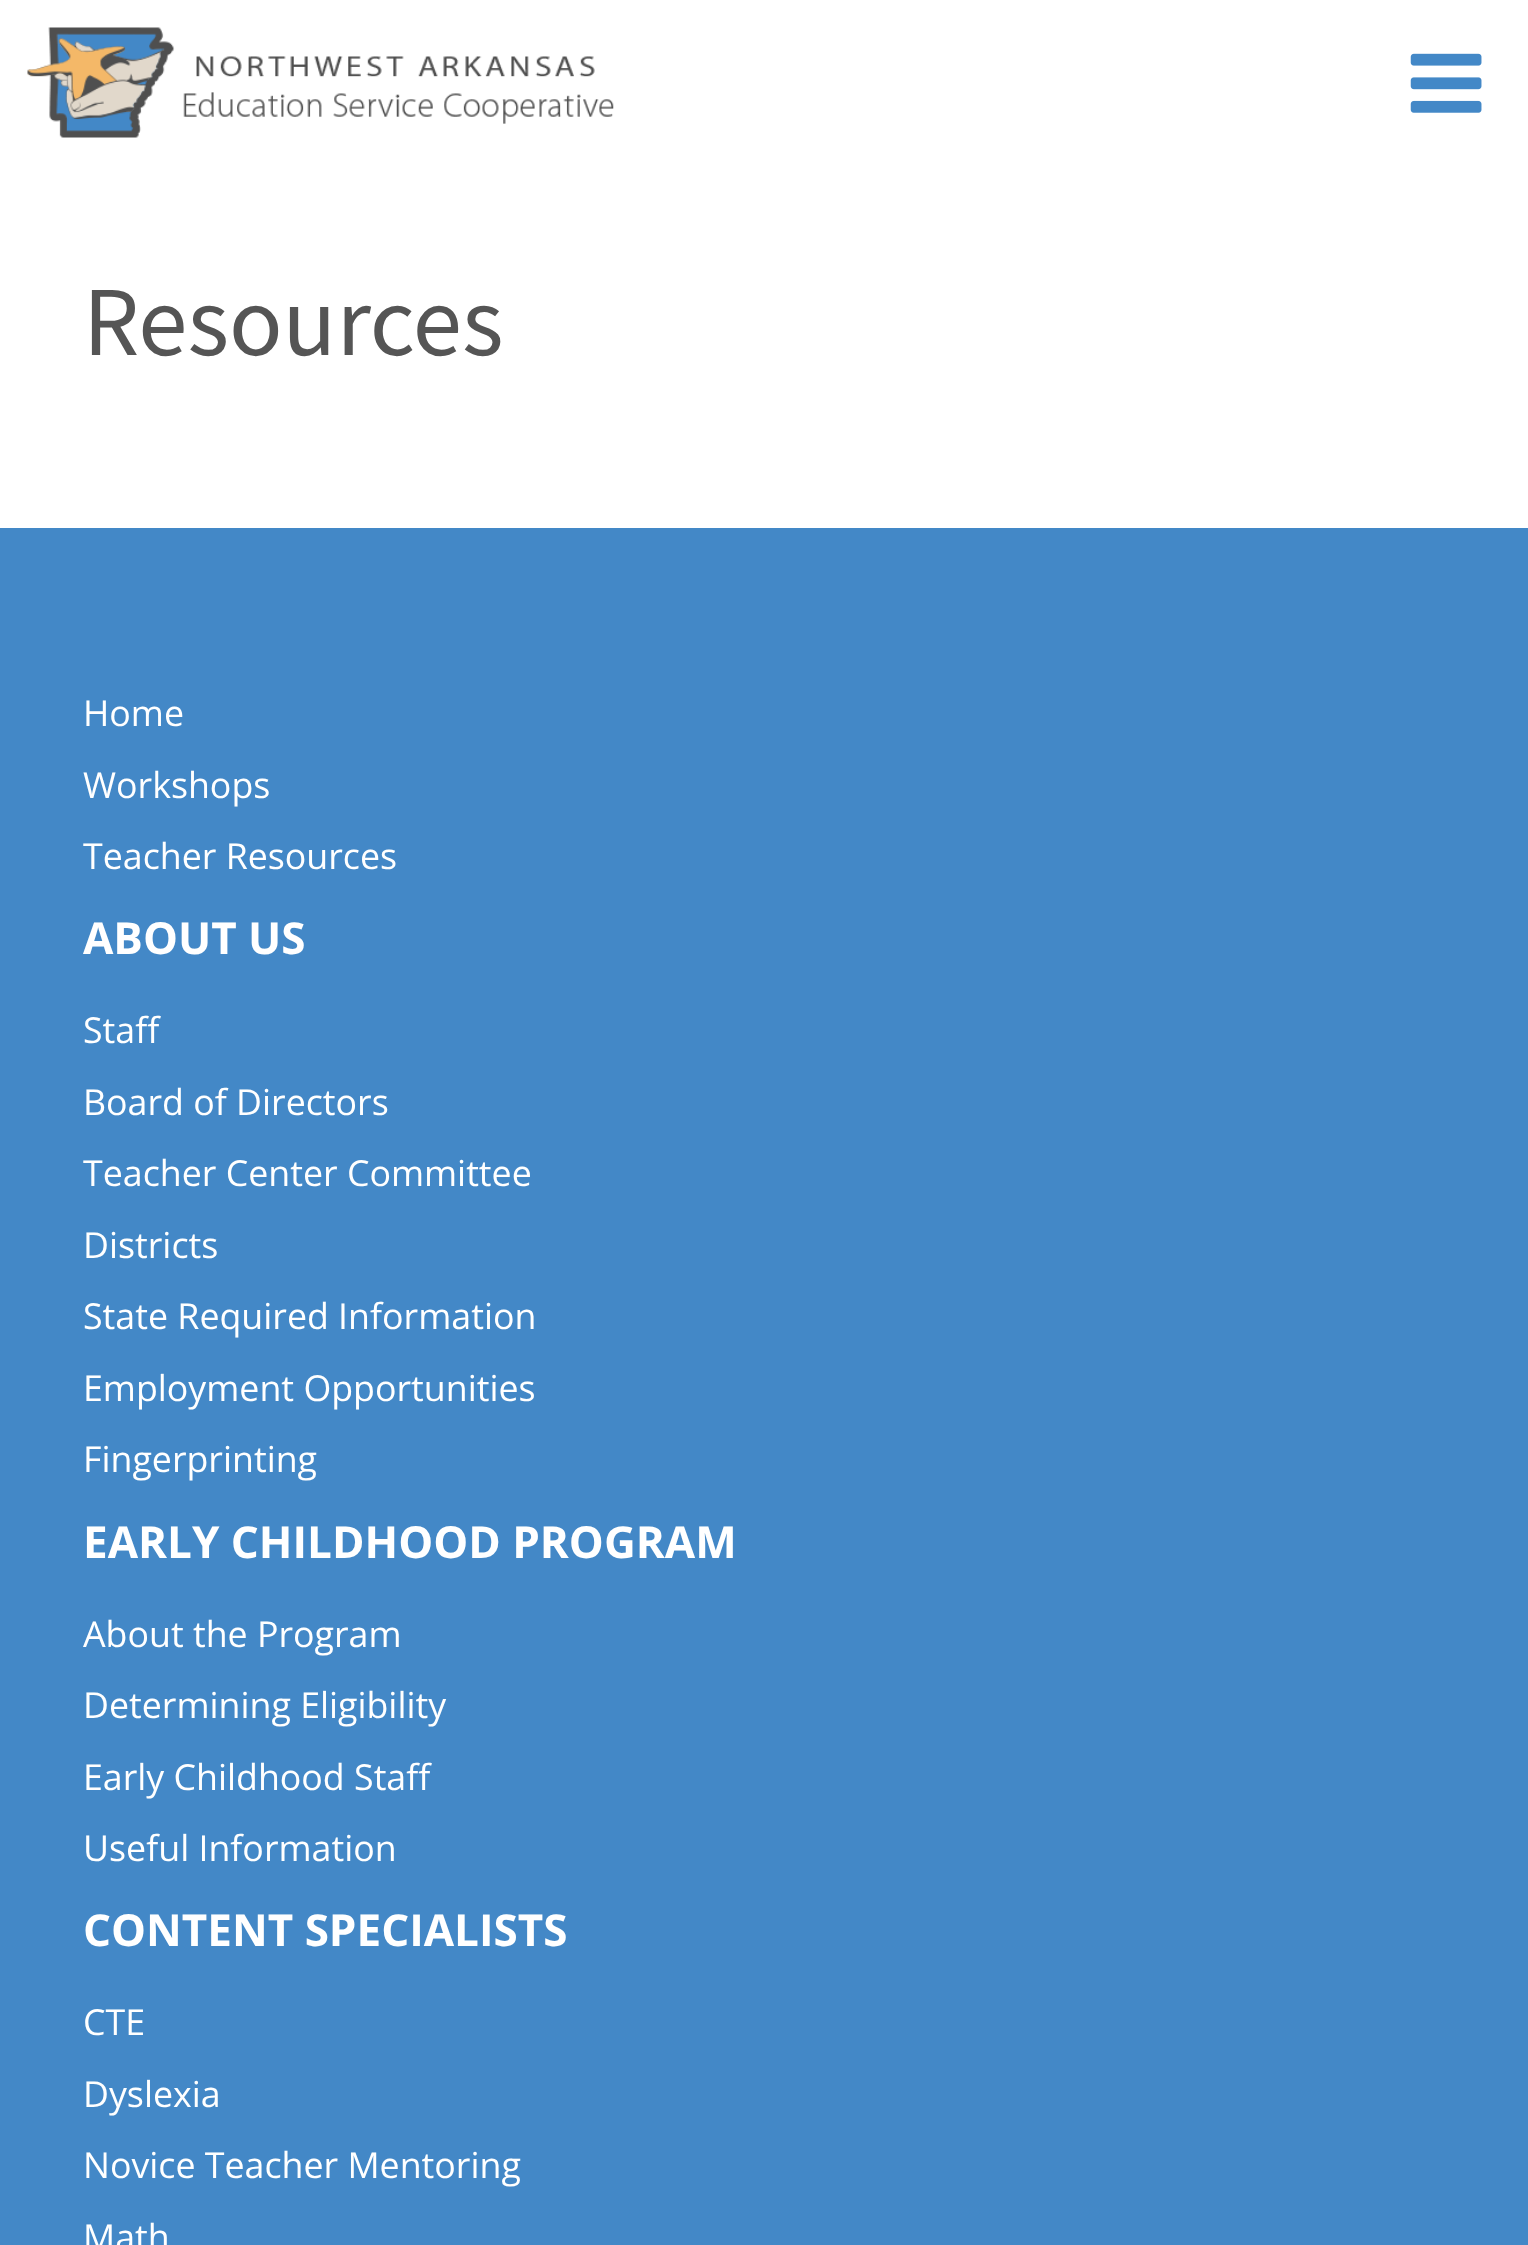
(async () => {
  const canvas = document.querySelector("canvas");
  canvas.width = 1528;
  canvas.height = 2245;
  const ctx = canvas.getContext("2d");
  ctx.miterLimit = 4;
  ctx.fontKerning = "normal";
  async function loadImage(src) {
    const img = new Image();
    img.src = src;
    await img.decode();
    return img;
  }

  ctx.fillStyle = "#ffffff";
  ctx.fillRect(0, 0, 1528, 2245);
  ctx.drawImage(await loadImage("img/1.png"), 27, 27, 587, 111);
  ctx.drawImage(await loadImage("img/2.png"), 1410, 53, 72, 60);
  ctx.fillStyle = "#4388c7";
  ctx.fillRect(0, 528, 1528, 1717);
  ctx.font = "99px Source Sans Pro";
  ctx.fillStyle = "#555555";
  ctx.fillText("Resources", 83, 355);
  ctx.font = "35.75px Open Sans";
  ctx.fillStyle = "#ffffff";
  for (const [text, x, y] of [
    ["Home", 83, 726],
    ["Workshops", 83, 798],
    ["Teacher Resources", 83, 869],
  ]) {
    ctx.fillText(text, x, y);
  }
  ctx.font = "bold 44px Open Sans";
  ctx.fillText("ABOUT US", 83, 954);
  ctx.font = "35.75px Open Sans";
  for (const [text, x, y] of [
    ["Staff", 83, 1043],
    ["Board of Directors", 83, 1115],
    ["Teacher Center Committee", 83, 1186],
    ["Districts", 83, 1258],
    ["State Required Information", 83, 1329],
    ["Employment Opportunities", 83, 1401],
    ["Fingerprinting", 83, 1472],
  ]) {
    ctx.fillText(text, x, y);
  }
  ctx.font = "bold 44px Open Sans";
  ctx.fillText("EARLY CHILDHOOD PROGRAM", 83, 1558);
  ctx.font = "35.75px Open Sans";
  for (const [text, x, y] of [
    ["About the Program", 83, 1647],
    ["Determining Eligibility", 83, 1718],
    ["Early Childhood Staff", 83, 1790],
    ["Useful Information", 83, 1861],
  ]) {
    ctx.fillText(text, x, y);
  }
  ctx.font = "bold 44px Open Sans";
  ctx.fillText("CONTENT SPECIALISTS", 83, 1946);
  ctx.font = "35.75px Open Sans";
  for (const [text, x, y] of [
    ["CTE", 83, 2035],
    ["Dyslexia", 83, 2107],
    ["Novice Teacher Mentoring", 83, 2178],
    ["Math", 83, 2250],
  ]) {
    ctx.fillText(text, x, y);
  }
})();
